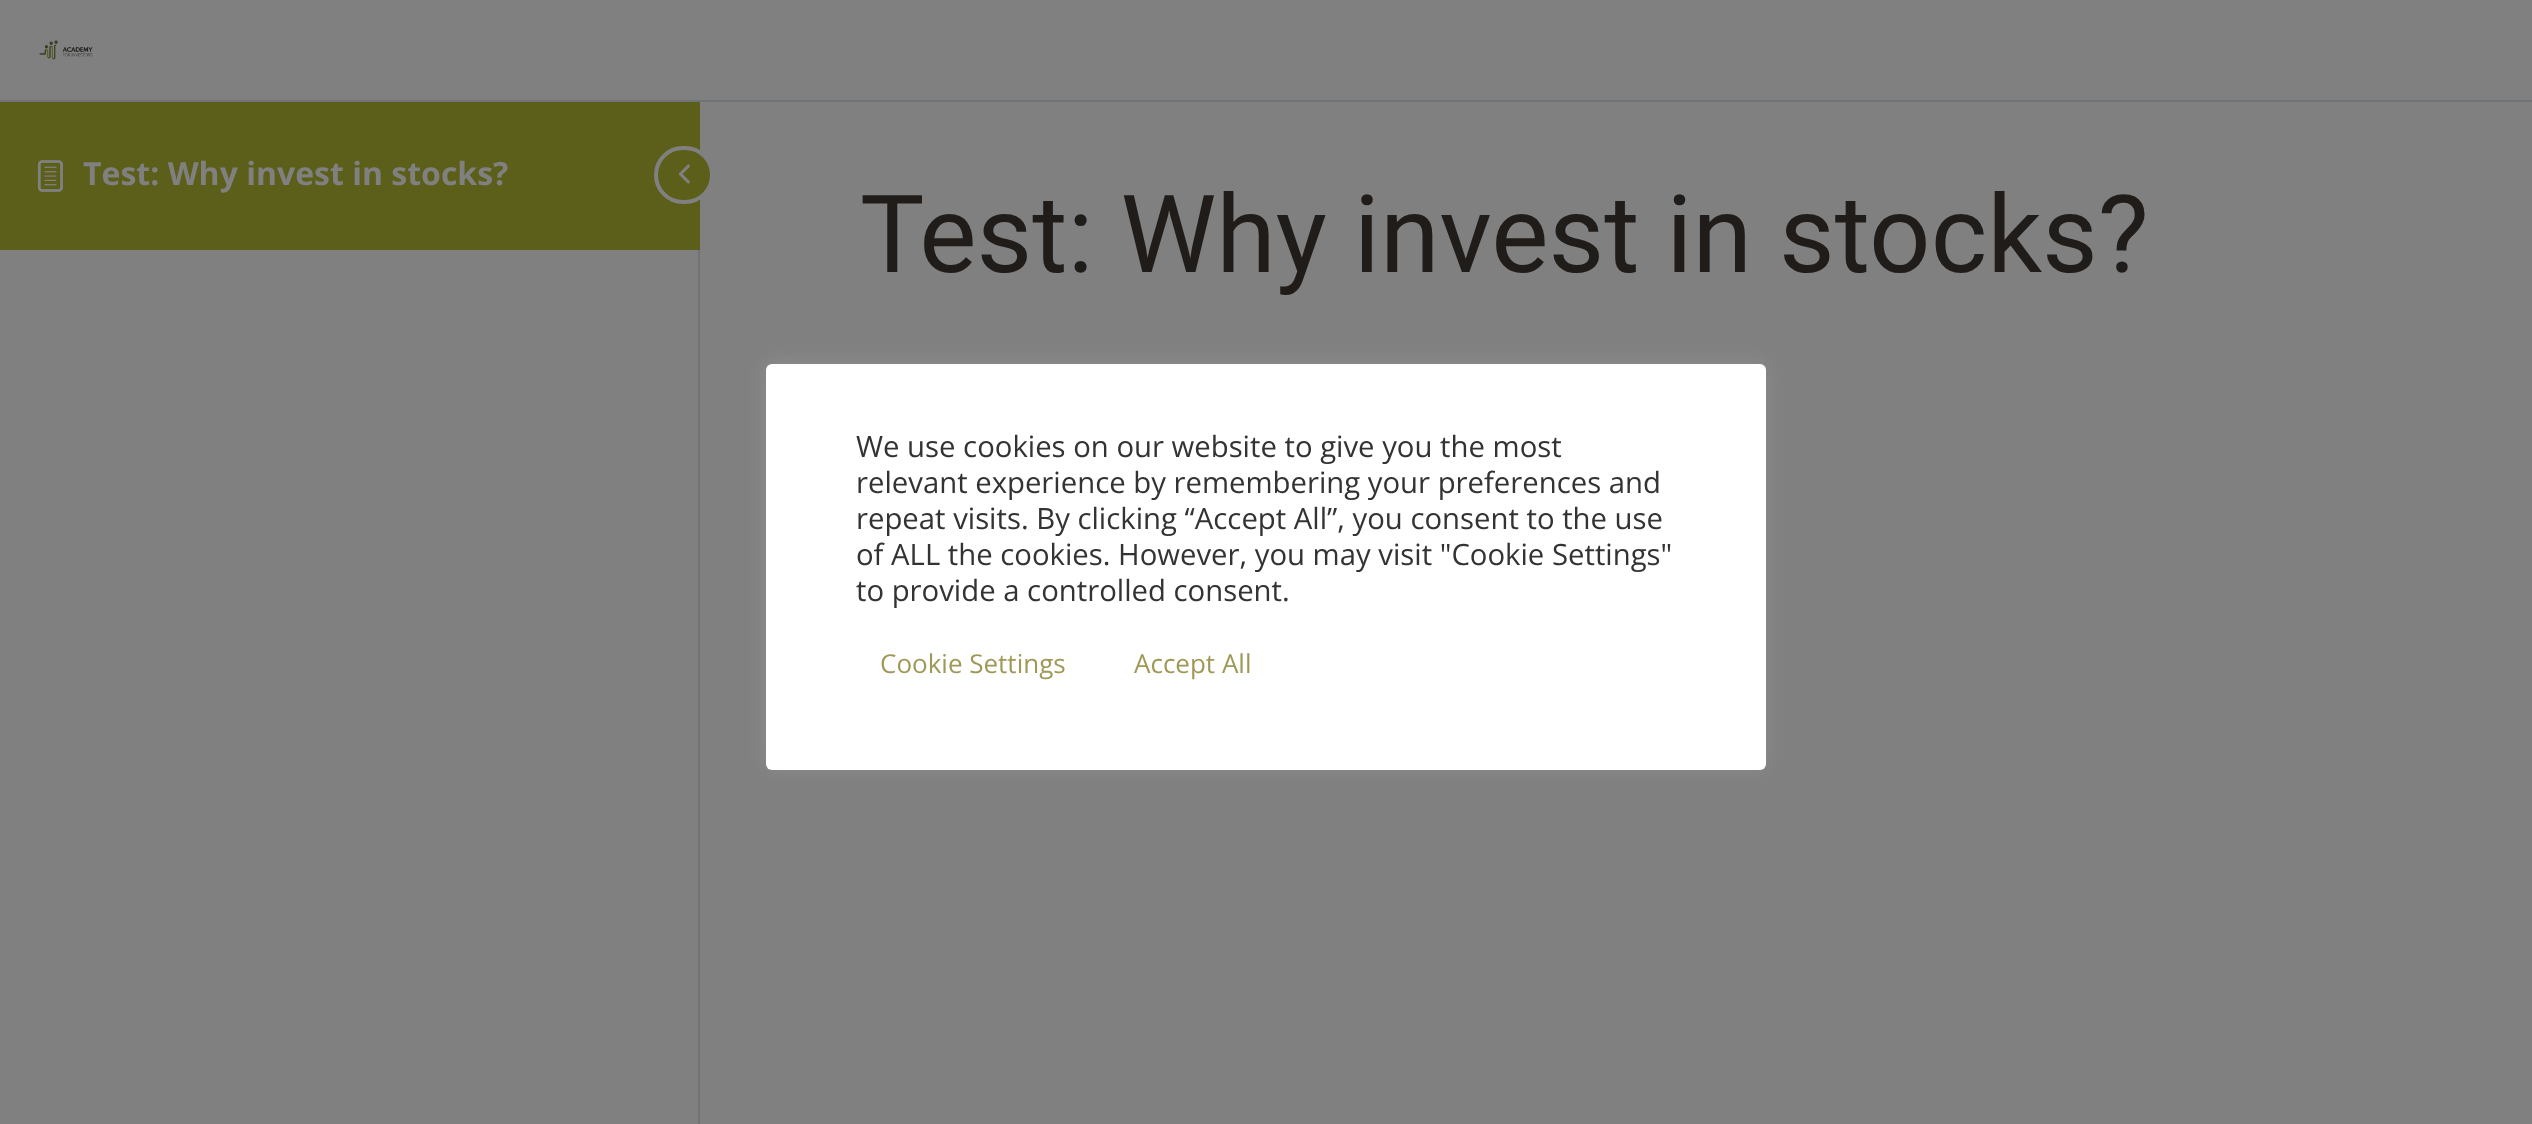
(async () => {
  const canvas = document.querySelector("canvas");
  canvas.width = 2532;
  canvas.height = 1124;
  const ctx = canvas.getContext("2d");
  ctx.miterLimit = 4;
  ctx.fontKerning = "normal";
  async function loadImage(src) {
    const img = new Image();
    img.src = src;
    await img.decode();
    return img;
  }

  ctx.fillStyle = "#808080";
  ctx.fillRect(0, 0, 2532, 1124);
  ctx.fillStyle = "#717477";
  ctx.fillRect(698, 250, 2, 874);
  ctx.fillStyle = "#5c5f1a";
  ctx.fillRect(0, 102, 700, 148);
  ctx.drawImage(await loadImage("img/1.png"), 37, 160, 26, 32);
  ctx.beginPath();
  ctx.roundRect(656, 148, 56, 54, 27);
  ctx.fill();
  ctx.strokeStyle = "#808080";
  ctx.lineWidth = 4;
  ctx.stroke();
  ctx.drawImage(await loadImage("img/2.png"), 678, 164, 12, 20);
  ctx.fillStyle = "#717477";
  ctx.fillRect(0, 100, 2532, 2);
  ctx.drawImage(await loadImage("img/3.png"), 39, 40, 54, 20);
  ctx.fillStyle = "rgba(172, 171, 171, 0.3)";
  ctx.filter = "blur(10px)";
  ctx.beginPath();
  ctx.roundRect(766, 362, 1000, 406, 6);
  ctx.fill();
  ctx.filter = "none";
  ctx.fillStyle = "#ffffff";
  ctx.beginPath();
  ctx.roundRect(766, 364, 1000, 406, 6);
  ctx.fill();
  ctx.font = "bold 32px Open Sans";
  ctx.fillStyle = "#808080";
  ctx.fillText("Test: Why invest in stocks?", 83, 185);
  ctx.font = "108px Roboto";
  ctx.fillStyle = "#201c19";
  ctx.fillText("Test: Why invest in stocks?", 860, 272);
  ctx.font = "29.3px Open Sans";
  ctx.fillStyle = "#333333";
  for (const [text, x, y] of [
    ["We use cookies on our website to give you the most", 856, 457],
    ["relevant experience by remembering your preferences and", 856, 493],
    ["repeat visits. By clicking “Accept All”, you consent to the use", 856, 529],
    ["of ALL the cookies. However, you may visit \"Cookie Settings\"", 856, 565],
    ["to provide a controlled consent.", 856, 601],
  ]) {
    ctx.fillText(text, x, y);
  }
  ctx.font = "26px Open Sans";
  ctx.fillStyle = "#9f9857";
  ctx.fillText("Cookie Settings", 880, 673);
  ctx.fillText("Accept All", 1134, 673);
})();
